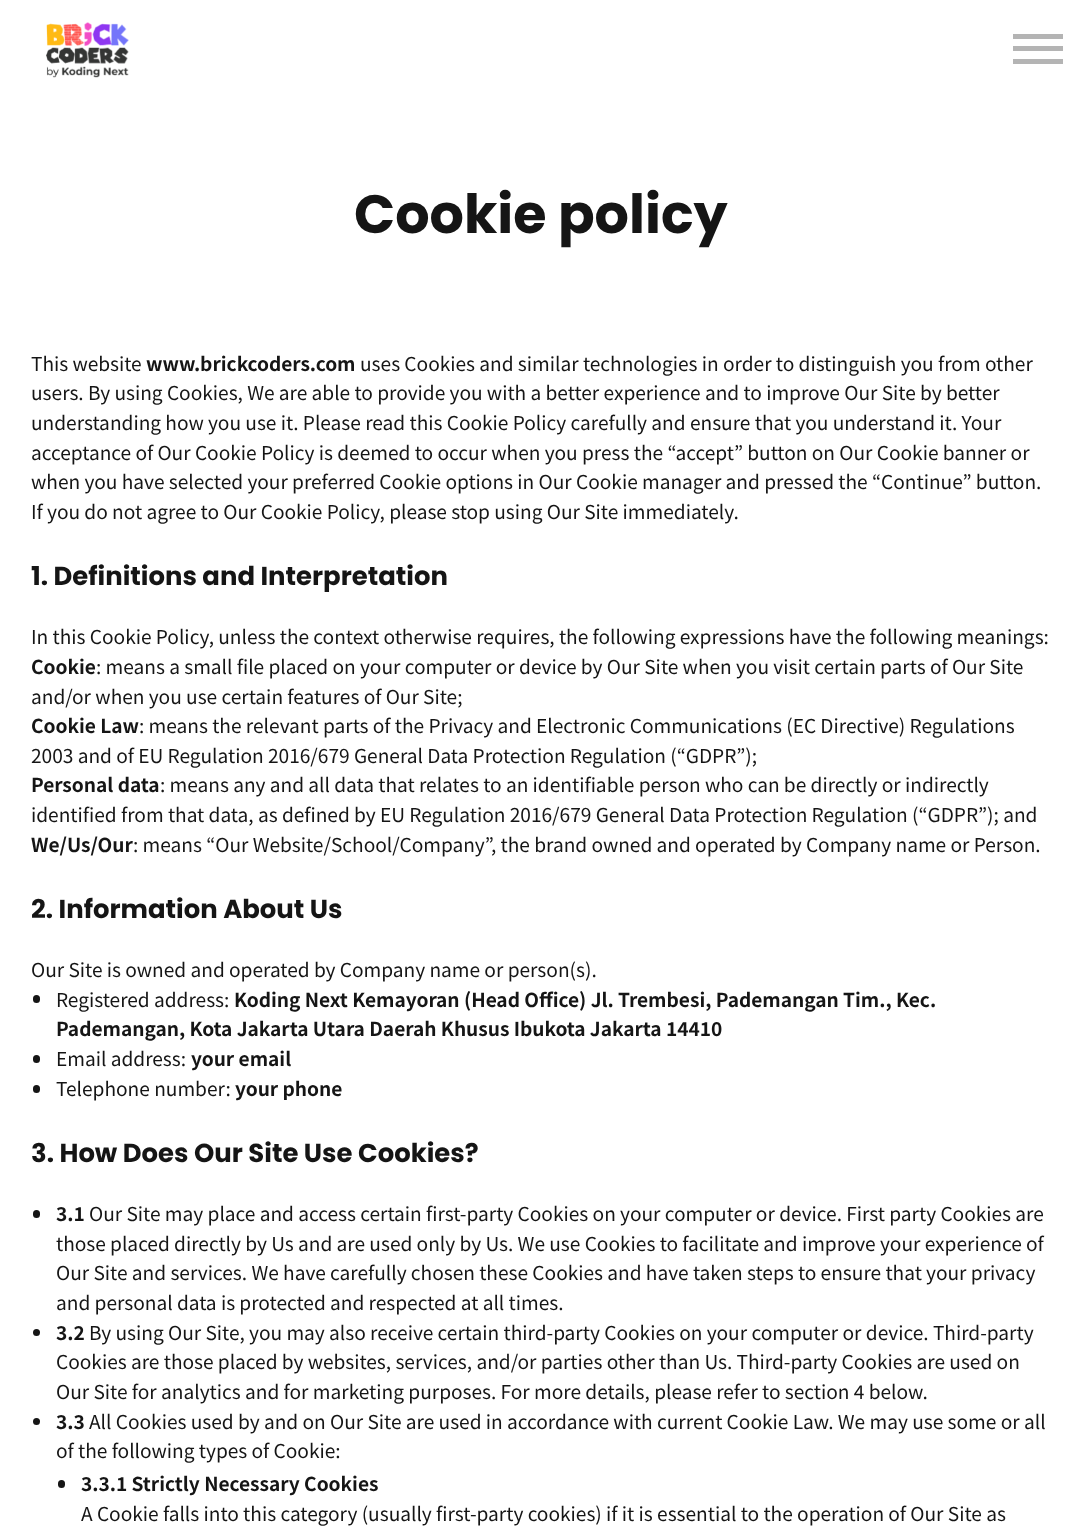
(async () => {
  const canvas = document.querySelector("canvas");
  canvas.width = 1081;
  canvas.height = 1532;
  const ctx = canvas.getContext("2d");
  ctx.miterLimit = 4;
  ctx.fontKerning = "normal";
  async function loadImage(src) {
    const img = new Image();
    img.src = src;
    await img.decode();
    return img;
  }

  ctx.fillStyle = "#ffffff";
  ctx.fillRect(0, 0, 1081, 1532);
  ctx.drawImage(await loadImage("img/1.png"), 46, 22, 83, 56);
  for (const [x, y, w, h, color] of [
    [1013, 59, 50, 5, "#b4b4b4"],
    [1013, 34, 50, 5, "#b4b4b4"],
    [1013, 46, 50, 5, "#b4b4b4"],
  ]) {
    ctx.fillStyle = color;
    ctx.fillRect(x, y, w, h);
  }
  ctx.fillStyle = "#151515";
  ctx.beginPath();
  ctx.roundRect(33, 995, 7, 8, 3.5);
  ctx.fill();
  ctx.beginPath();
  ctx.roundRect(33, 1055, 7, 8, 3.5);
  ctx.fill();
  ctx.beginPath();
  ctx.roundRect(33, 1085, 7, 8, 3.5);
  ctx.fill();
  ctx.beginPath();
  ctx.roundRect(33, 1210, 7, 8, 3.5);
  ctx.fill();
  ctx.beginPath();
  ctx.arc(36.5, 1332.5, 3.5, 0, Math.PI * 2);
  ctx.fill();
  ctx.beginPath();
  ctx.arc(36.5, 1421.5, 3.5, 0, Math.PI * 2);
  ctx.fill();
  ctx.beginPath();
  ctx.roundRect(58, 1480, 7, 8, 3.5);
  ctx.fill();
  ctx.font = "bold 54px Poppins";
  ctx.fillText("Cookie policy", 354, 233);
  ctx.font = "19.12px Noto Sans JP";
  ctx.fillText("This website", 31, 371);
  ctx.font = "bold 19.12px Noto Sans JP";
  ctx.fillText("www.brickcoders.com", 146, 371);
  ctx.font = "19.12px Noto Sans JP";
  for (const [text, x, y] of [
    ["uses Cookies and similar technologies in order to distinguish you from other", 360, 371],
    ["users. By using Cookies, We are able to provide you with a better experience and to improve Our Site by better", 31, 400],
    ["understanding how you use it. Please read this Cookie Policy carefully and ensure that you understand it. Your", 31, 430],
    ["acceptance of Our Cookie Policy is deemed to occur when you press the “accept” button on Our Cookie banner or", 31, 460],
    ["when you have selected your preferred Cookie options in Our Cookie manager and pressed the “Continue” button.", 31, 489],
    ["If you do not agree to Our Cookie Policy, please stop using Our Site immediately.", 31, 519],
  ]) {
    ctx.fillText(text, x, y);
  }
  ctx.font = "bold 25.9px Poppins";
  ctx.fillText("1. Definitions and Interpretation", 31, 585);
  ctx.font = "19.12px Noto Sans JP";
  ctx.fillText("In this Cookie Policy, unless the context otherwise requires, the following expressions have the following meanings:", 31, 644);
  ctx.font = "bold 19.12px Noto Sans JP";
  ctx.fillText("Cookie", 31, 674);
  ctx.font = "19.12px Noto Sans JP";
  ctx.fillText(": means a small file placed on your computer or device by Our Site when you visit certain parts of Our Site", 96, 674);
  ctx.fillText("and/or when you use certain features of Our Site;", 31, 704);
  ctx.font = "bold 19.12px Noto Sans JP";
  ctx.fillText("Cookie Law", 31, 733);
  ctx.font = "19.12px Noto Sans JP";
  ctx.fillText(": means the relevant parts of the Privacy and Electronic Communications (EC Directive) Regulations", 139, 733);
  ctx.fillText("2003 and of EU Regulation 2016/679 General Data Protection Regulation (“GDPR”);", 31, 763);
  ctx.font = "bold 19.12px Noto Sans JP";
  ctx.fillText("Personal data", 31, 792);
  ctx.font = "19.12px Noto Sans JP";
  ctx.fillText(": means any and all data that relates to an identifiable person who can be directly or indirectly", 160, 792);
  ctx.fillText("identified from that data, as defined by EU Regulation 2016/679 General Data Protection Regulation (“GDPR”); and", 31, 822);
  ctx.font = "bold 19.12px Noto Sans JP";
  ctx.fillText("We/Us/Our", 31, 852);
  ctx.font = "19.12px Noto Sans JP";
  ctx.fillText(": means “Our Website/School/Company”, the brand owned and operated by Company name or Person.", 133, 852);
  ctx.font = "bold 25.9px Poppins";
  ctx.fillText("2. Information About Us", 31, 918);
  ctx.font = "19.12px Noto Sans JP";
  ctx.fillText("Our Site is owned and operated by Company name or person(s).", 31, 977);
  ctx.fillText("Registered address:", 56, 1007);
  ctx.font = "bold 19.12px Noto Sans JP";
  ctx.fillText("Koding Next Kemayoran (Head Office) Jl. Trembesi, Pademangan Tim., Kec.", 234, 1007);
  ctx.fillText("Pademangan, Kota Jakarta Utara Daerah Khusus Ibukota Jakarta 14410", 56, 1036);
  ctx.font = "19.12px Noto Sans JP";
  ctx.fillText("Email address:", 56, 1066);
  ctx.font = "bold 19.12px Noto Sans JP";
  ctx.fillText("your email", 191, 1066);
  ctx.font = "19.12px Noto Sans JP";
  ctx.fillText("Telephone number:", 56, 1096);
  ctx.font = "bold 19.12px Noto Sans JP";
  ctx.fillText("your phone", 235, 1096);
  ctx.font = "bold 25.9px Poppins";
  ctx.fillText("3. How Does Our Site Use Cookies?", 31, 1162);
  ctx.font = "bold 19.12px Noto Sans JP";
  ctx.fillText("3.1", 56, 1221);
  ctx.font = "19.12px Noto Sans JP";
  for (const [text, x, y] of [
    ["Our Site may place and access certain first-party Cookies on your computer or device. First party Cookies are", 89, 1221],
    ["those placed directly by Us and are used only by Us. We use Cookies to facilitate and improve your experience of", 56, 1251],
    ["Our Site and services. We have carefully chosen these Cookies and have taken steps to ensure that your privacy", 56, 1280],
    ["and personal data is protected and respected at all times.", 56, 1310],
  ]) {
    ctx.fillText(text, x, y);
  }
  ctx.font = "bold 19.12px Noto Sans JP";
  ctx.fillText("3.2", 56, 1340);
  ctx.font = "19.12px Noto Sans JP";
  for (const [text, x, y] of [
    ["By using Our Site, you may also receive certain third-party Cookies on your computer or device. Third-party", 89, 1340],
    ["Cookies are those placed by websites, services, and/or parties other than Us. Third-party Cookies are used on", 56, 1369],
    ["Our Site for analytics and for marketing purposes. For more details, please refer to section 4 below.", 56, 1399],
  ]) {
    ctx.fillText(text, x, y);
  }
  ctx.font = "bold 19.12px Noto Sans JP";
  ctx.fillText("3.3", 56, 1429);
  ctx.font = "19.12px Noto Sans JP";
  ctx.fillText("All Cookies used by and on Our Site are used in accordance with current Cookie Law. We may use some or all", 89, 1429);
  ctx.fillText("of the following types of Cookie:", 56, 1458);
  ctx.font = "bold 19.12px Noto Sans JP";
  ctx.fillText("3.3.1 Strictly Necessary Cookies", 81, 1491);
  ctx.font = "19.12px Noto Sans JP";
  ctx.fillText("A Cookie falls into this category (usually first-party cookies) if it is essential to the operation of Our Site as", 81, 1521);
})();
